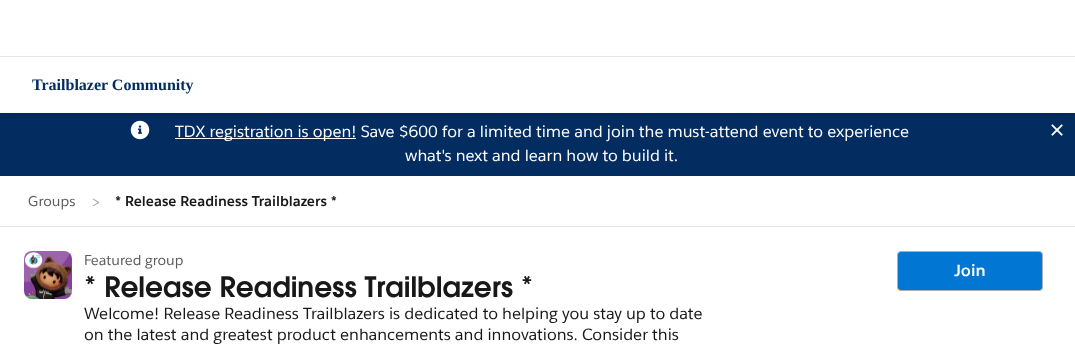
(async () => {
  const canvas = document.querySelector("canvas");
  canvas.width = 1075;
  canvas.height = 346;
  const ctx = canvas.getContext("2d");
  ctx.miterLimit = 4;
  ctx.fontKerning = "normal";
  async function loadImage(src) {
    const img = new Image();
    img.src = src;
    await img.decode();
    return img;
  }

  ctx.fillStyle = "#ffffff";
  ctx.fillRect(0, 0, 1075, 346);
  ctx.fillStyle = "#032d60";
  ctx.fillRect(0, 113, 1075, 63);
  ctx.drawImage(await loadImage("img/1.png"), 130, 120, 20, 20);
  ctx.fillStyle = "rgba(24, 24, 24, 0.16)";
  ctx.filter = "blur(2px)";
  ctx.beginPath();
  ctx.rect(-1, 57, 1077, 59);
  ctx.fill();
  ctx.filter = "none";
  ctx.fillStyle = "rgba(24, 24, 24, 0.08)";
  ctx.filter = "blur(1px)";
  ctx.beginPath();
  ctx.rect(0, 56, 1075, 57);
  ctx.fill();
  ctx.filter = "none";
  for (const [x, y, w, h, color] of [
    [0, 54, 1075, 2, "#ffffff"],
    [0, 57, 1075, 56, "#ffffff"],
    [0, 56, 1075, 1, "#e5e5e5"],
    [175, 138, 181, 1, "#ffffff"],
  ]) {
    ctx.fillStyle = color;
    ctx.fillRect(x, y, w, h);
  }
  ctx.drawImage(await loadImage("img/2.png"), 1051, 124, 12, 12);
  ctx.fillStyle = "#e5e5e5";
  ctx.fillRect(0, 226, 1075, 1);
  ctx.beginPath();
  ctx.roundRect(24, 251, 48, 48, 8);
  ctx.fill();
  ctx.drawImage(await loadImage("img/3.png"), 24, 251, 48, 48);
  ctx.fillStyle = "#0176d3";
  ctx.beginPath();
  ctx.roundRect(897.5, 251.5, 145, 39, 3.5);
  ctx.fill();
  ctx.strokeStyle = "#aeaeae";
  ctx.stroke();
  ctx.font = "bold 16px Liberation Serif";
  ctx.fillStyle = "#032d60";
  ctx.fillText("Trailblazer Community", 32, 90);
  ctx.font = "16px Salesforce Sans";
  ctx.fillStyle = "#ffffff";
  ctx.fillText("TDX registration is open! Save $600 for a limited time and join the must-attend event to experience", 175, 137);
  ctx.fillText("what's next and learn how to build it.", 405, 161);
  ctx.font = "14px Salesforce Sans";
  ctx.fillStyle = "#5c5c5c";
  ctx.fillText("Groups", 28, 206);
  ctx.font = "16px Salesforce Sans";
  ctx.fillStyle = "#aeaeae";
  ctx.fillText(">", 91, 207);
  ctx.font = "bold 14px Salesforce Sans";
  ctx.fillStyle = "#181818";
  ctx.fillText("* Release Readiness Trailblazers *", 115, 206);
  ctx.font = "14px Salesforce Sans";
  ctx.fillStyle = "#5c5c5c";
  ctx.fillText("Featured group", 84, 265);
  ctx.font = "600 28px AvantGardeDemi";
  ctx.fillStyle = "#181818";
  ctx.fillText("* Release Readiness Trailblazers *", 84, 297);
  ctx.font = "16px Salesforce Sans";
  ctx.fillText("Welcome! Release Readiness Trailblazers is dedicated to helping you stay up to date", 84, 319);
  ctx.fillText("on the latest and greatest product enhancements and innovations. Consider this", 84, 340);
  ctx.font = "bold 16px Salesforce Sans";
  ctx.fillStyle = "#ffffff";
  ctx.fillText("Join", 954, 276);
})();
